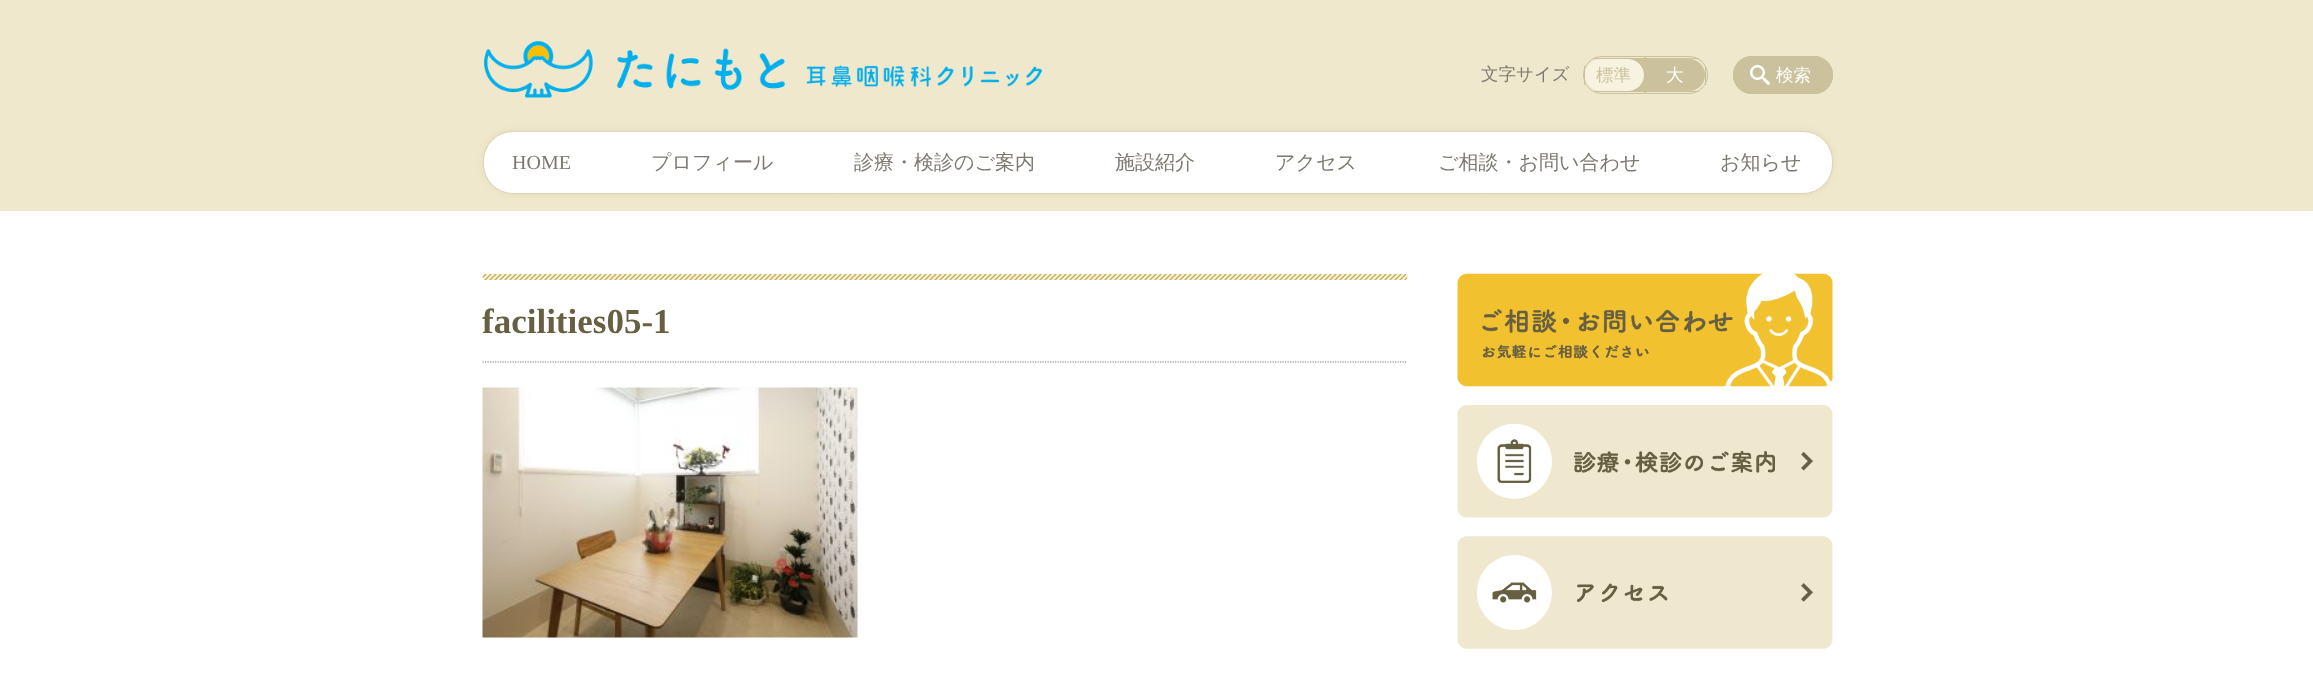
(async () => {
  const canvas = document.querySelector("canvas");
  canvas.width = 2313;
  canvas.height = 689;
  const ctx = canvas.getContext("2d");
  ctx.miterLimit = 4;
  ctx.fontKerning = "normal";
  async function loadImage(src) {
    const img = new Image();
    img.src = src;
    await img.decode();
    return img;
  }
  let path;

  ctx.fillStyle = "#ffffff";
  ctx.fillRect(0, 0, 2313, 689);
  ctx.fillStyle = "#f0e8cc";
  ctx.fillRect(0, 0, 2313, 211);
  ctx.drawImage(await loadImage("img/1.png"), 484, 41, 558, 57);
  ctx.fillStyle = "#f8f3e1";
  ctx.beginPath();
  ctx.roundRect(1585, 59, 59, 32, [16, 0, 0, 16]);
  ctx.fill();
  ctx.fillStyle = "#cbc19c";
  path = new Path2D("M1627.5 91C1636.5 91 1644 84 1644 75V91ZM1627.5 59H1644V75C1644 66 1636.5 59 1627.5 59Z");
  ctx.fill(path, "evenodd");
  ctx.beginPath();
  ctx.roundRect(1583.5, 56.5, 61, 37, [18.5, 0, 0, 18.5]);
  ctx.strokeStyle = "#cbc19c";
  ctx.stroke();
  for (const [x, y, w, h, color] of [
    [1593, 58, 52, 1, "#cbc19c"],
    [1593, 91, 52, 1, "#cbc19c"],
    [1584, 66, 1, 19, "#cbc19c"],
  ]) {
    ctx.fillStyle = color;
    ctx.fillRect(x, y, w, h);
  }
  ctx.beginPath();
  ctx.roundRect(1646, 59, 59, 32, [0, 16, 16, 0]);
  ctx.fill();
  ctx.beginPath();
  ctx.roundRect(1645.5, 56.5, 62, 37, [0, 18.5, 18.5, 0]);
  ctx.stroke();
  for (const [x, y, w, h, color] of [
    [1645, 58, 54, 1, "#cbc19c"],
    [1705, 66, 1, 19, "#cbc19c"],
    [1645, 91, 54, 1, "#cbc19c"],
  ]) {
    ctx.fillStyle = color;
    ctx.fillRect(x, y, w, h);
  }
  ctx.beginPath();
  ctx.roundRect(1733, 56, 100, 38, 19);
  ctx.fill();
  ctx.drawImage(await loadImage("img/2.png"), 1750, 65, 20, 20);
  ctx.beginPath();
  ctx.roundRect(1734.5, 57.5, 97, 35, 17.5);
  ctx.lineWidth = 3;
  ctx.stroke();
  ctx.fillStyle = "rgba(221, 212, 181, 0.7)";
  ctx.filter = "blur(3px)";
  ctx.beginPath();
  ctx.roundRect(483, 131, 1350, 63, 30);
  ctx.fill();
  ctx.filter = "none";
  ctx.fillStyle = "#ffffff";
  ctx.beginPath();
  ctx.roundRect(483.5, 131.5, 1349, 62, 29.5);
  ctx.fill();
  ctx.strokeStyle = "#ddd4b5";
  ctx.lineWidth = 1;
  ctx.stroke();
  path = new Path2D("M482.5 362H1407.5");
  ctx.strokeStyle = "#7c7970";
  ctx.lineWidth = 1.2;
  ctx.setLineDash([1.25, 1.25]);
  ctx.stroke(path);
  ctx.fillStyle = "#f8f3e1";
  ctx.beginPath();
  ctx.roundRect(483, 274, 925, 6, 3);
  ctx.fill();
  ctx.drawImage(await loadImage("img/3.png"), 482, 273, 926, 7);
  ctx.drawImage(await loadImage("img/4.png"), 482, 387, 376, 251);
  ctx.drawImage(await loadImage("img/5.png"), 1457, 273, 376, 114);
  ctx.drawImage(await loadImage("img/6.png"), 1457, 405, 376, 113);
  ctx.drawImage(await loadImage("img/7.png"), 1457, 536, 376, 113);
  ctx.font = "500 17.5px WenQuanYi Zen Hei";
  ctx.fillStyle = "#7c7970";
  ctx.fillText("文字サイズ", 1481, 80);
  ctx.fillStyle = "#cbc19c";
  ctx.fillText("標準", 1596, 81);
  ctx.fillStyle = "#ffffff";
  ctx.fillText("大", 1666, 81);
  ctx.fillText("検索", 1776, 81);
  ctx.font = "20px Liberation Serif";
  ctx.fillStyle = "#7c7970";
  ctx.fillText("HOME", 512, 169);
  ctx.font = "500 20px WenQuanYi Zen Hei";
  for (const [text, x, y] of [
    ["プロフィール", 651, 169],
    ["診療・検診のご案内", 854, 169],
    ["施設紹介", 1115, 169],
    ["アクセス", 1275, 169],
    ["ご相談・お問い合わせ", 1438, 169],
    ["お知らせ", 1720, 169],
  ]) {
    ctx.fillText(text, x, y);
  }
  ctx.font = "bold 35px Liberation Serif";
  ctx.fillStyle = "#675f41";
  ctx.fillText("facilities05-1", 482, 333);
})();
